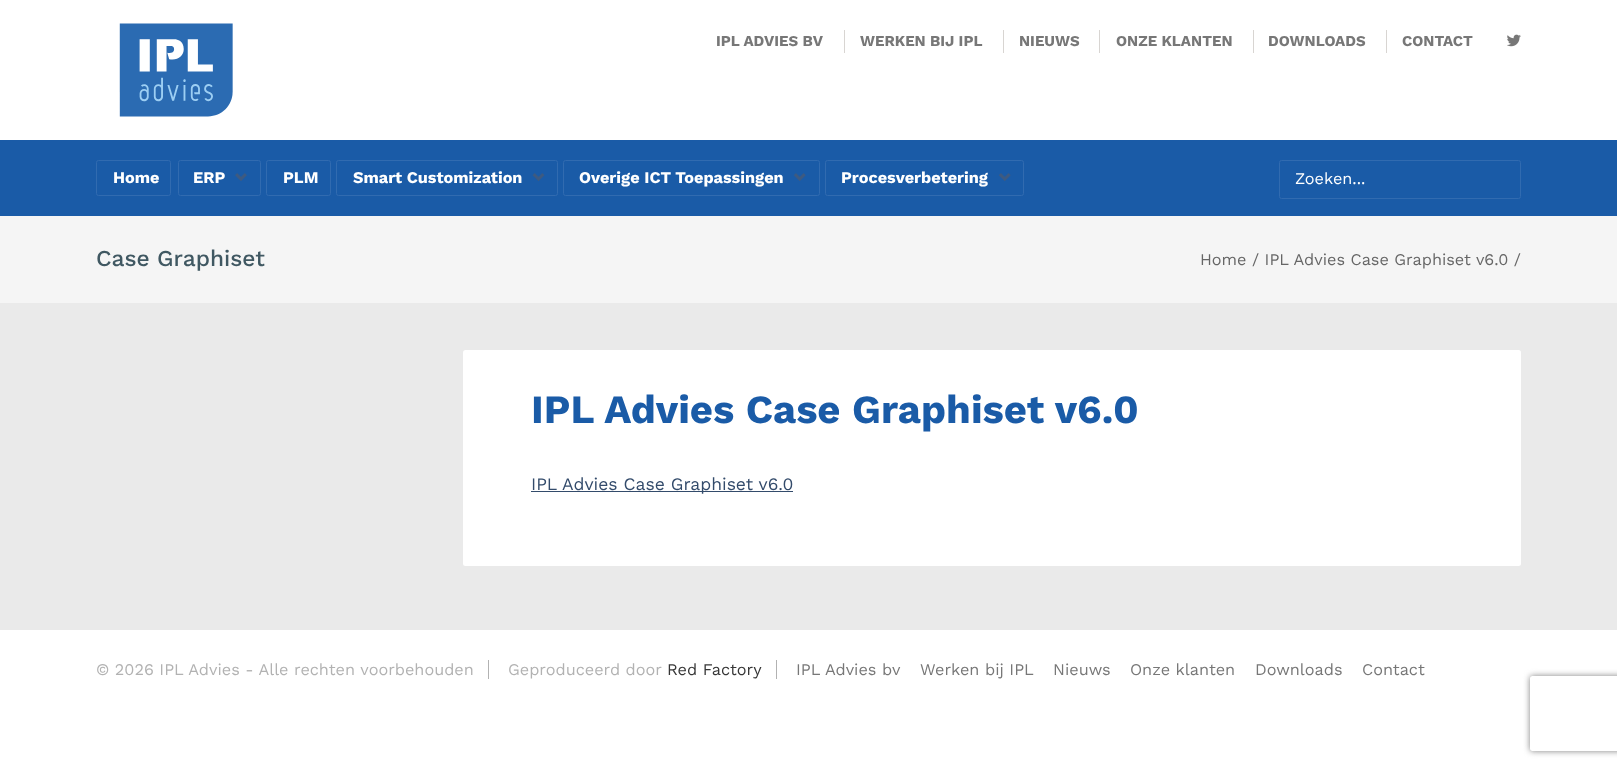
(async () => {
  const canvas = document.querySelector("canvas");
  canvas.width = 1617;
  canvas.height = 768;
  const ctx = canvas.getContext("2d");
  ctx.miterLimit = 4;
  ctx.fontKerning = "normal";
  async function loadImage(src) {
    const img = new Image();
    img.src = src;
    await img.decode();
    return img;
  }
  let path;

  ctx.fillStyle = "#ffffff";
  ctx.fillRect(0, 0, 1617, 768);
  ctx.drawImage(await loadImage("img/1.png"), 119, 23, 114, 94);
  for (const [x, y, w, h, color] of [
    [844, 30, 1, 23, "#d8d5d2"],
    [1003, 30, 1, 23, "#d8d5d2"],
    [1099, 30, 1, 23, "#d8d5d2"],
    [1253, 30, 1, 23, "#d8d5d2"],
    [1386, 30, 1, 23, "#d8d5d2"],
  ]) {
    ctx.fillStyle = color;
    ctx.fillRect(x, y, w, h);
  }
  ctx.drawImage(await loadImage("img/2.png"), 1507, 34, 14, 13);
  ctx.fillStyle = "#1a5ba7";
  ctx.fillRect(0, 140, 1617, 76);
  ctx.beginPath();
  ctx.roundRect(96.5, 160.5, 74, 35, 2);
  ctx.strokeStyle = "#316bb0";
  ctx.stroke();
  ctx.beginPath();
  ctx.roundRect(178.5, 160.5, 82, 35, 2);
  ctx.stroke();
  ctx.drawImage(await loadImage("img/3.png"), 235, 173, 12, 8);
  ctx.beginPath();
  ctx.roundRect(266.5, 160.5, 64, 35, 2);
  ctx.stroke();
  ctx.beginPath();
  ctx.roundRect(336.5, 160.5, 221, 35, 2);
  ctx.stroke();
  ctx.drawImage(await loadImage("img/4.png"), 532, 173, 13, 8);
  ctx.beginPath();
  ctx.roundRect(563.5, 160.5, 256, 35, 2);
  ctx.stroke();
  ctx.drawImage(await loadImage("img/5.png"), 794, 173, 12, 8);
  ctx.beginPath();
  ctx.roundRect(825.5, 160.5, 198, 35, 2);
  ctx.stroke();
  ctx.drawImage(await loadImage("img/5.png"), 999, 173, 12, 8);
  ctx.beginPath();
  ctx.roundRect(1279.5, 160.5, 241, 38, 2);
  ctx.stroke();
  ctx.fillStyle = "#f5f5f5";
  ctx.fillRect(0, 216, 1617, 87);
  ctx.fillStyle = "#eaeaea";
  ctx.fillRect(0, 303, 1617, 327);
  ctx.fillStyle = "#ffffff";
  ctx.beginPath();
  ctx.roundRect(463, 350, 1058, 216, 2.5);
  ctx.fill();
  for (const [x, y, w, h, color] of [
    [531, 491, 262, 1, "#334b6b"],
    [488, 660, 1, 19, "#b2b2b2"],
    [776, 660, 1, 19, "#b2b2b2"],
  ]) {
    ctx.fillStyle = color;
    ctx.fillRect(x, y, w, h);
  }
  ctx.save();
  path = new Path2D("M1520 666H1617V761H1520ZM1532.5 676H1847.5C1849 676 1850 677 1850 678.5V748.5C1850 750 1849 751 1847.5 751H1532.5C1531 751 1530 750 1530 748.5V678.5C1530 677 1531 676 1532.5 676Z");
  ctx.clip(path, "evenodd");
  ctx.fillStyle = "#808080";
  ctx.filter = "blur(3px)";
  ctx.beginPath();
  ctx.roundRect(1530, 676, 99, 75, 2.5);
  ctx.fill();
  ctx.filter = "none";
  ctx.restore();
  ctx.font = "bold 15px Work Sans";
  ctx.fillStyle = "#777777";
  for (const [text, x, y] of [
    ["IPL ADVIES BV", 716, 46],
    ["WERKEN BIJ IPL", 860, 46],
    ["NIEUWS", 1019, 46],
    ["ONZE KLANTEN", 1116, 46],
    ["DOWNLOADS", 1268, 46],
    ["CONTACT", 1402, 46],
  ]) {
    ctx.fillText(text, x, y);
  }
  ctx.font = "bold 16.25px Work Sans";
  ctx.fillStyle = "#ffffff";
  for (const [text, x, y] of [
    ["Home", 113, 183],
    ["ERP", 193, 183],
    ["PLM", 283, 183],
    ["Smart Customization", 353, 183],
    ["Overige ICT Toepassingen", 579, 183],
    ["Procesverbetering", 841, 183],
  ]) {
    ctx.fillText(text, x, y);
  }
  ctx.font = "16.25px Work Sans";
  ctx.fillText("Zoeken...", 1295, 184);
  ctx.font = "500 22.75px Work Sans";
  ctx.fillStyle = "#405862";
  ctx.fillText("Case Graphiset", 96, 266);
  ctx.font = "16.25px Work Sans";
  ctx.fillStyle = "#666666";
  ctx.fillText("Home / IPL Advies Case Graphiset v6.0 /", 1200, 265);
  ctx.font = "bold 40px Work Sans";
  ctx.fillStyle = "#1a5ba7";
  ctx.fillText("IPL Advies Case Graphiset v6.0", 531, 423);
  ctx.font = "17.5px Work Sans";
  ctx.fillStyle = "#334b6b";
  ctx.fillText("IPL Advies Case Graphiset v6.0", 531, 490);
  ctx.font = "16.25px Work Sans";
  ctx.fillStyle = "#b2b2b2";
  ctx.fillText("© 2026 IPL Advies - Alle rechten voorbehouden", 96, 675);
  ctx.fillText("Geproduceerd door", 508, 675);
  ctx.fillStyle = "#363636";
  ctx.fillText("Red Factory", 667, 675);
  ctx.fillStyle = "#777777";
  for (const [text, x, y] of [
    ["IPL Advies bv", 796, 675],
    ["Werken bij IPL", 920, 675],
    ["Nieuws", 1053, 675],
    ["Onze klanten", 1130, 675],
    ["Downloads", 1255, 675],
    ["Contact", 1362, 675],
  ]) {
    ctx.fillText(text, x, y);
  }
})();
